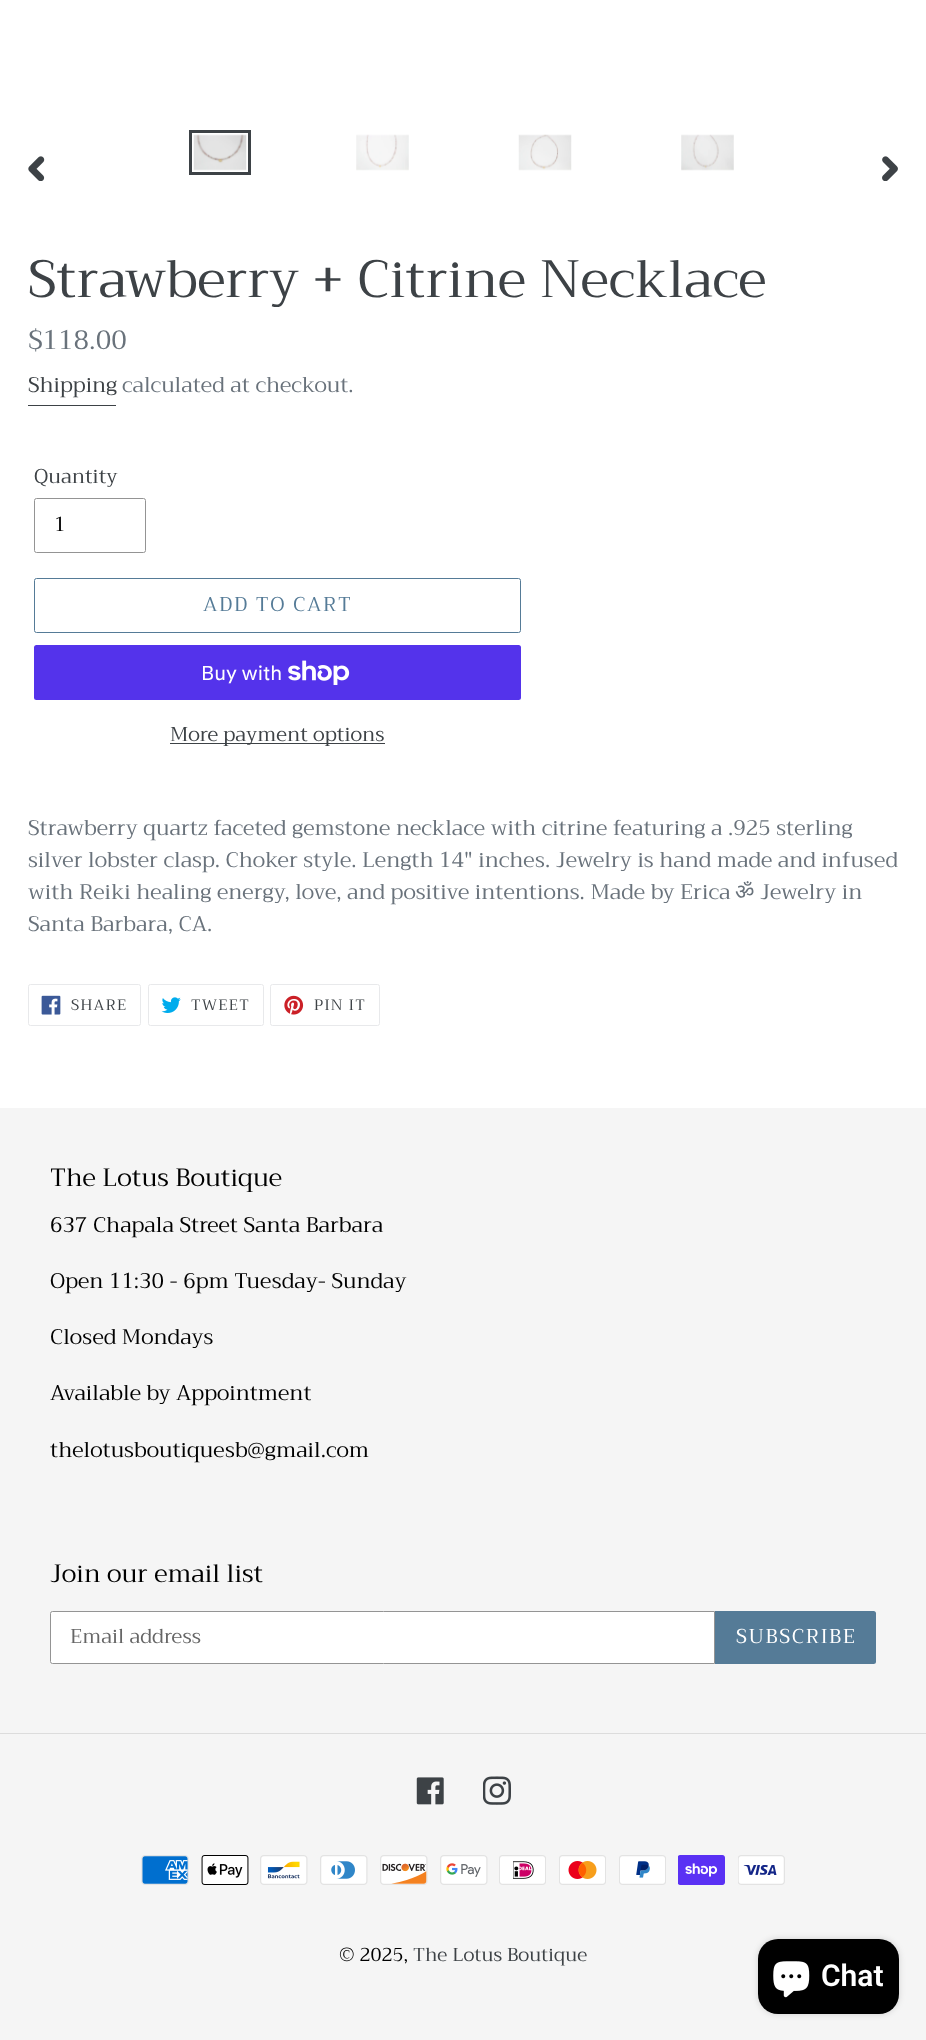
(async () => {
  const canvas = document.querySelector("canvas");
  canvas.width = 926;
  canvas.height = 2040;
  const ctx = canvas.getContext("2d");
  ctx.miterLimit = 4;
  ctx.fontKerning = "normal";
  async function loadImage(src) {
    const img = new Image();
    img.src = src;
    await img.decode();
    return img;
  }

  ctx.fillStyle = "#ffffff";
  ctx.fillRect(0, 0, 926, 2040);
  ctx.drawImage(await loadImage("img/1.png"), 28, 156, 17, 25);
  ctx.strokeStyle = "#3d4246";
  ctx.lineWidth = 3;
  ctx.strokeRect(190.5, 131.5, 59, 42);
  ctx.drawImage(await loadImage("img/2.png"), 193, 134, 54, 37);
  ctx.drawImage(await loadImage("img/3.png"), 356, 134, 53, 37);
  ctx.drawImage(await loadImage("img/4.png"), 518, 134, 54, 37);
  ctx.drawImage(await loadImage("img/5.png"), 681, 134, 53, 37);
  ctx.drawImage(await loadImage("img/6.png"), 882, 156, 16, 25);
  ctx.fillStyle = "#3d4246";
  ctx.fillRect(28, 405, 88, 1);
  ctx.beginPath();
  ctx.roundRect(34.5, 498.5, 111, 54, 2);
  ctx.strokeStyle = "#949494";
  ctx.lineWidth = 1;
  ctx.stroke();
  ctx.beginPath();
  ctx.roundRect(34.5, 578.5, 486, 54, 2);
  ctx.strokeStyle = "#557b97";
  ctx.stroke();
  ctx.fillStyle = "#5433eb";
  ctx.beginPath();
  ctx.roundRect(34, 645, 487, 55, 2.5);
  ctx.fill();
  ctx.drawImage(await loadImage("img/7.png"), 288, 660, 62, 25);
  ctx.fillStyle = "#3d4246";
  ctx.fillRect(170, 743, 215, 1);
  ctx.beginPath();
  ctx.roundRect(28.5, 984.5, 112, 41, 2);
  ctx.strokeStyle = "#e8e9eb";
  ctx.stroke();
  ctx.drawImage(await loadImage("img/8.png"), 41, 995, 20, 20);
  ctx.beginPath();
  ctx.roundRect(148.5, 984.5, 115, 41, 2);
  ctx.stroke();
  ctx.drawImage(await loadImage("img/9.png"), 161, 997, 20, 16);
  ctx.beginPath();
  ctx.roundRect(270.5, 984.5, 109, 41, 2);
  ctx.stroke();
  ctx.drawImage(await loadImage("img/10.png"), 284, 995, 20, 20);
  ctx.fillStyle = "#f5f5f5";
  ctx.fillRect(0, 1108, 926, 932);
  ctx.fillStyle = "#ffffff";
  ctx.beginPath();
  ctx.roundRect(50.5, 1611.5, 664, 52, [2, 0, 0, 2]);
  ctx.fill();
  ctx.strokeStyle = "#949494";
  ctx.stroke();
  ctx.fillStyle = "#557b97";
  ctx.beginPath();
  ctx.roundRect(715, 1611, 161, 53, [0, 2.5, 2.5, 0]);
  ctx.fill();
  ctx.fillStyle = "#dcdcdc";
  ctx.fillRect(0, 1733, 926, 1);
  ctx.drawImage(await loadImage("img/11.png"), 416, 1777, 28, 28);
  ctx.drawImage(await loadImage("img/12.png"), 483, 1776, 28, 29);
  ctx.drawImage(await loadImage("img/13.png"), 141, 1855, 48, 30);
  ctx.drawImage(await loadImage("img/14.png"), 201, 1855, 48, 30);
  ctx.drawImage(await loadImage("img/15.png"), 260, 1855, 48, 30);
  ctx.drawImage(await loadImage("img/16.png"), 320, 1855, 48, 30);
  ctx.drawImage(await loadImage("img/17.png"), 380, 1855, 48, 30);
  ctx.drawImage(await loadImage("img/18.png"), 440, 1855, 48, 30);
  ctx.drawImage(await loadImage("img/19.png"), 499, 1855, 47, 30);
  ctx.drawImage(await loadImage("img/20.png"), 559, 1855, 47, 30);
  ctx.drawImage(await loadImage("img/21.png"), 619, 1855, 47, 30);
  ctx.drawImage(await loadImage("img/22.png"), 678, 1855, 47, 30);
  ctx.drawImage(await loadImage("img/23.png"), 738, 1855, 47, 30);
  ctx.fillStyle = "rgba(0, 0, 0, 0.15)";
  ctx.filter = "blur(3px)";
  ctx.beginPath();
  ctx.roundRect(758, 1939, 141, 75, 20);
  ctx.fill();
  ctx.filter = "none";
  ctx.fillStyle = "#000000";
  ctx.beginPath();
  ctx.roundRect(758, 1939, 141, 75, 20);
  ctx.fill();
  ctx.drawImage(await loadImage("img/24.png"), 773, 1961, 37, 37);
  ctx.font = "52.5px Trirong";
  ctx.fillStyle = "#3d4246";
  ctx.fillText("Strawberry + Citrine Necklace", 28, 297);
  ctx.font = "26.5px Trirong";
  ctx.fillStyle = "#69727b";
  ctx.fillText("$118.00", 28, 349);
  ctx.font = "21.25px Trirong";
  ctx.fillStyle = "#3d4246";
  ctx.fillText("Shipping", 28, 392);
  ctx.fillStyle = "#69727b";
  ctx.fillText("calculated at checkout.", 122, 392);
  ctx.font = "20px Trirong";
  ctx.fillStyle = "#3d4246";
  ctx.fillText("Quantity", 34, 483);
  ctx.fillStyle = "#000000";
  ctx.fillText("1", 54, 531);
  ctx.letterSpacing = "1.6px";
  ctx.fillStyle = "#557b97";
  ctx.fillText("ADD TO CART", 203, 611);
  ctx.letterSpacing = "0px";
  ctx.font = "20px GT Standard";
  ctx.fillStyle = "#ffffff";
  ctx.fillText("Buy with", 201, 680);
  ctx.font = "20px Trirong";
  ctx.fillStyle = "#3d4246";
  ctx.fillText("More payment options", 170, 741);
  ctx.font = "21.25px Trirong";
  ctx.fillStyle = "#69727b";
  for (const [text, x, y] of [
    ["Strawberry quartz faceted gemstone necklace with citrine featuring a .925 sterling", 28, 835],
    ["silver lobster clasp. Choker style. Length 14\" inches. Jewelry is hand made and infused", 28, 867],
    ["with Reiki healing energy, love, and positive intentions. Made by Erica", 28, 899],
  ]) {
    ctx.fillText(text, x, y);
  }
  ctx.font = "21.25px Noto Sans";
  ctx.fillText("ॐ", 735, 899);
  ctx.font = "21.25px Trirong";
  ctx.fillText("Jewelry in", 760, 899);
  ctx.fillText("Santa Barbara, CA.", 28, 931);
  ctx.letterSpacing = "1.25px";
  ctx.font = "15px Trirong";
  ctx.fillStyle = "#3d4246";
  for (const [text, x, y] of [
    ["SHARE", 71, 1010],
    ["TWEET", 191, 1010],
    ["PIN IT", 314, 1010],
  ]) {
    ctx.fillText(text, x, y);
  }
  ctx.letterSpacing = "0px";
  ctx.font = "25px Trirong";
  ctx.fillStyle = "#000000";
  ctx.fillText("The Lotus Boutique", 50, 1186);
  ctx.font = "21.25px Trirong";
  for (const [text, x, y] of [
    ["637 Chapala Street Santa Barbara", 50, 1232],
    ["Open 11:30 - 6pm Tuesday- Sunday", 50, 1288],
    ["Closed Mondays", 50, 1344],
    ["Available by Appointment", 50, 1400],
    ["thelotusboutiquesb@gmail.com", 50, 1457],
  ]) {
    ctx.fillText(text, x, y);
  }
  ctx.font = "25px Trirong";
  ctx.fillText("Join our email list", 50, 1582);
  ctx.font = "20px Trirong";
  ctx.fillStyle = "#666666";
  ctx.fillText("Email address", 70, 1643);
  ctx.letterSpacing = "1.6px";
  ctx.fillStyle = "#ffffff";
  ctx.fillText("SUBSCRIBE", 736, 1643);
  ctx.letterSpacing = "0px";
  ctx.font = "18.75px Trirong";
  ctx.fillStyle = "#000000";
  ctx.fillText("© 2025,", 339, 1961);
  ctx.fillStyle = "#3d4246";
  ctx.fillText("The Lotus Boutique", 413, 1961);
  ctx.font = "600 30px Roboto";
  ctx.fillStyle = "#ffffff";
  ctx.fillText("Chat", 821, 1986);
})();
